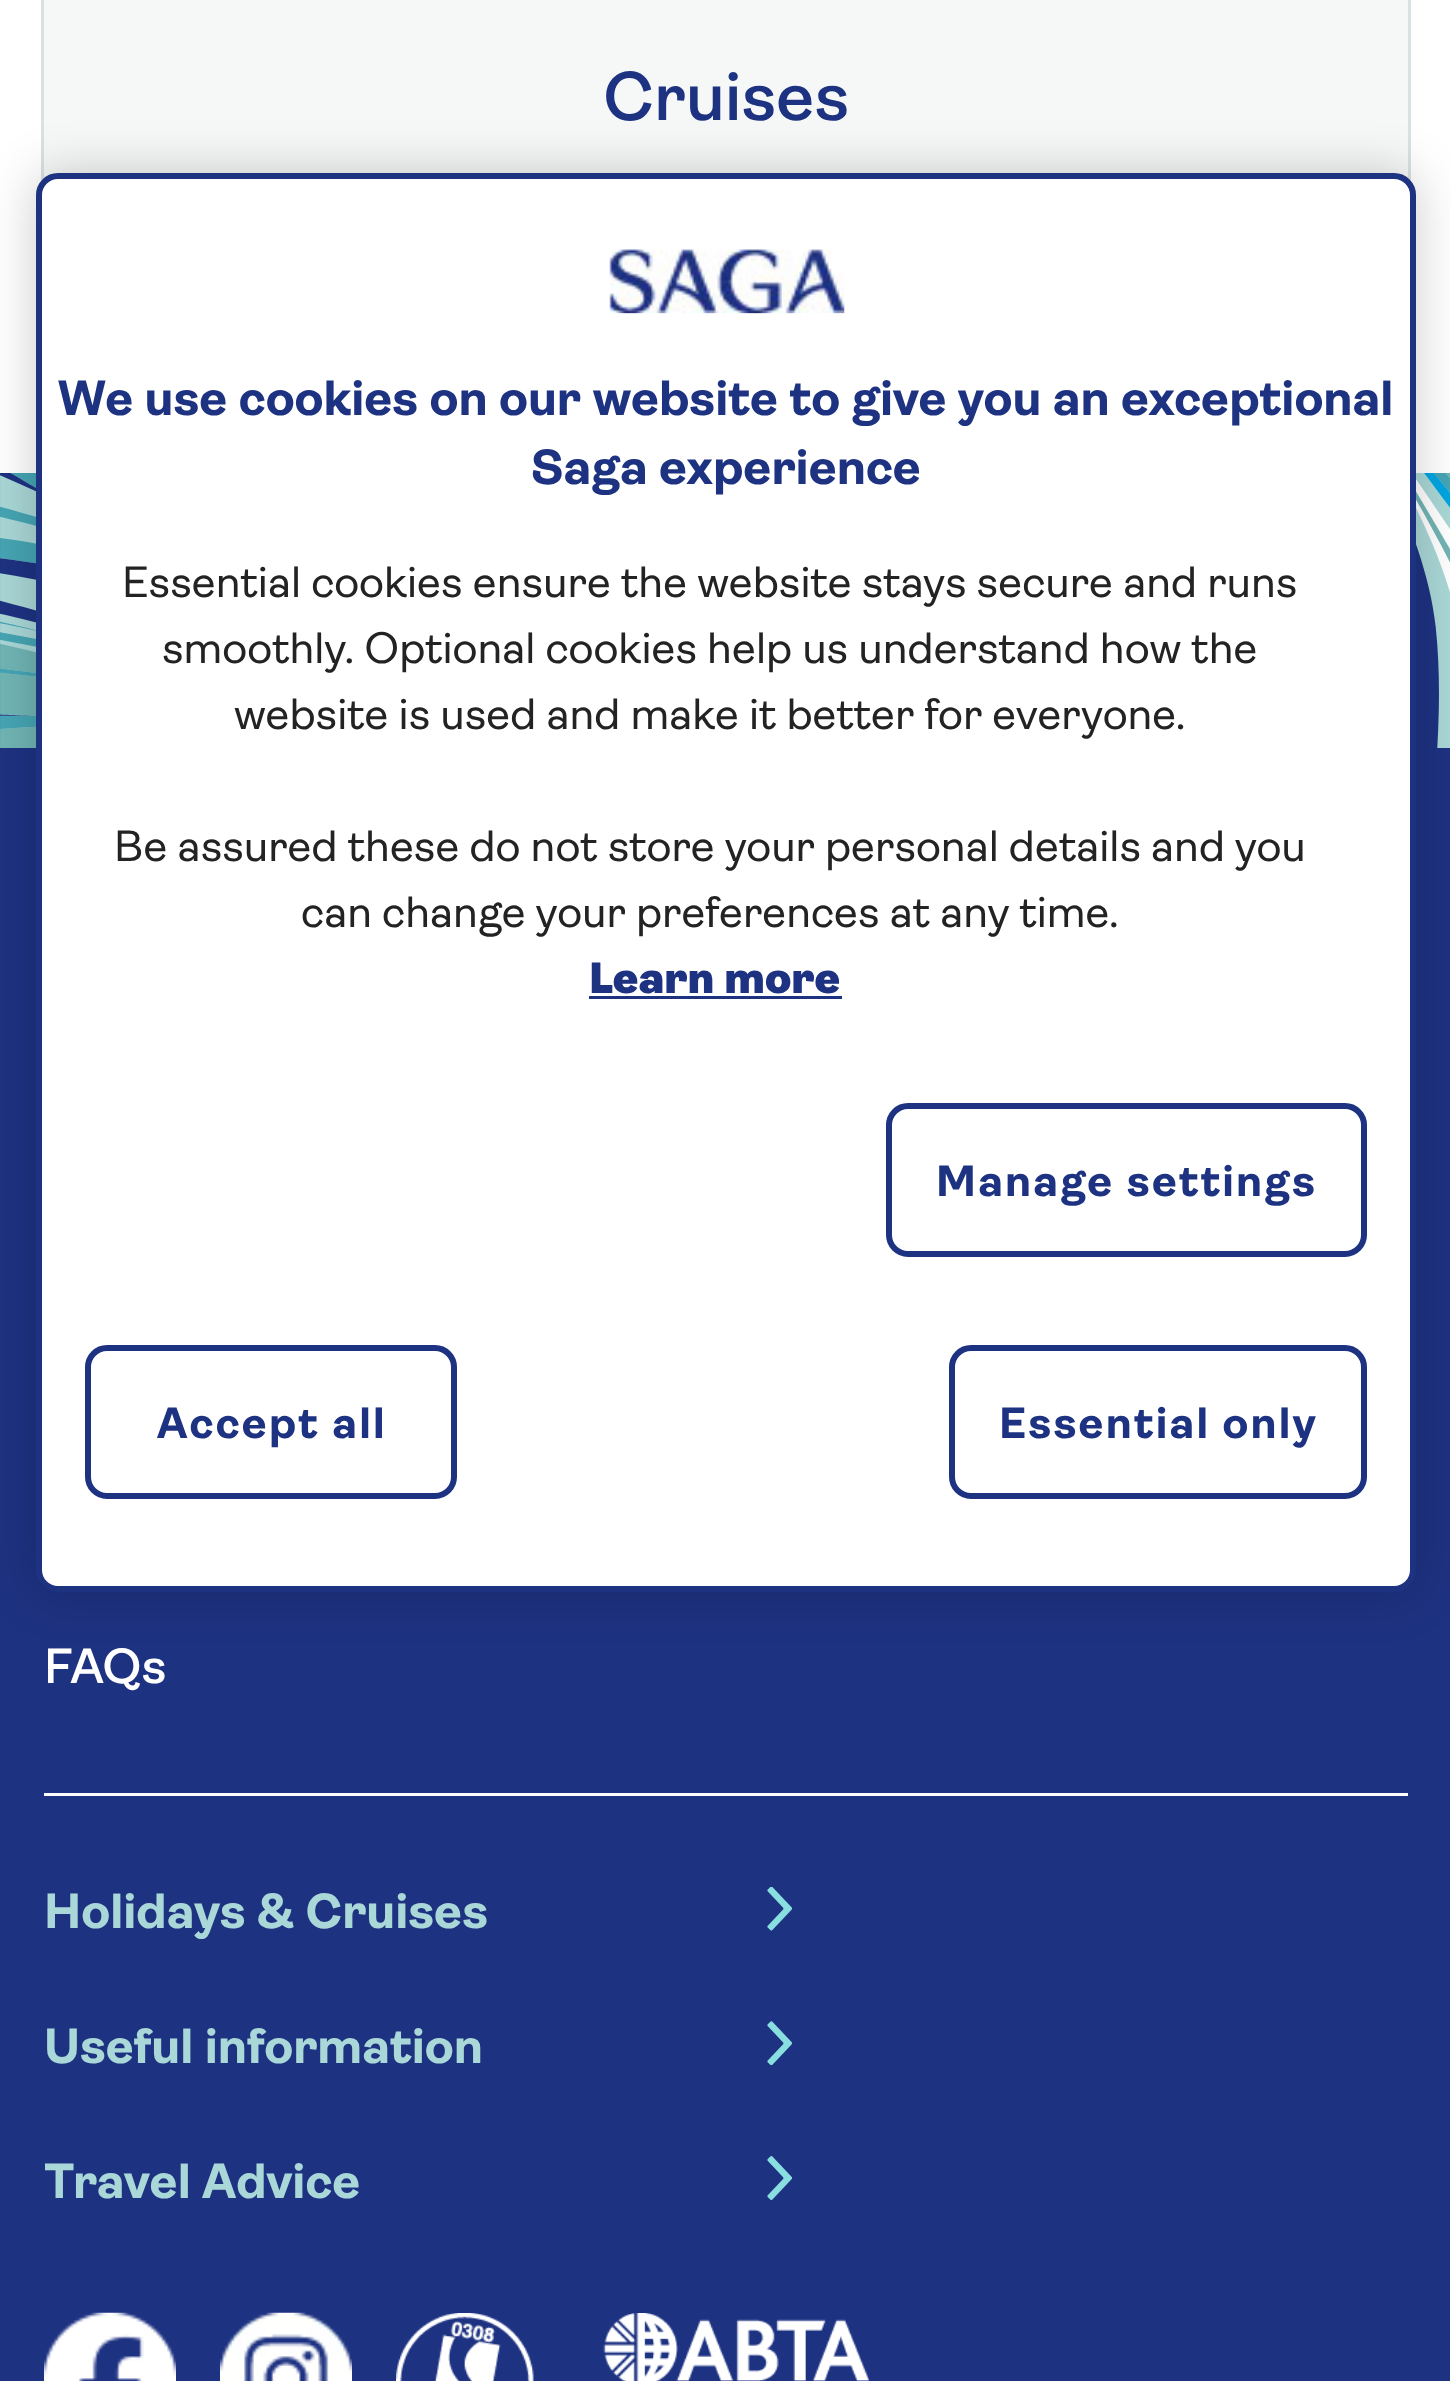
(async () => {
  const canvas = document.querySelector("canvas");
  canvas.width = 1450;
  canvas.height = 2381;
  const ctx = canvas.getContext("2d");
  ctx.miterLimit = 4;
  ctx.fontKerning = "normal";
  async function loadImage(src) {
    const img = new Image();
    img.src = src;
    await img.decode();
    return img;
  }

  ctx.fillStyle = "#ffffff";
  ctx.fillRect(0, 0, 1450, 2381);
  ctx.fillStyle = "#f6f8f8";
  ctx.fillRect(44, 0, 1364, 178);
  ctx.strokeStyle = "#d9e1e2";
  ctx.lineWidth = 3;
  ctx.strokeRect(42.5, -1.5, 1367, 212);
  ctx.fillStyle = "#1e3282";
  ctx.fillRect(0, 473, 1450, 1908);
  ctx.drawImage(await loadImage("img/2.png"), 0, 473, 1450, 275);
  ctx.fillStyle = "rgba(0, 0, 0, 0.2)";
  ctx.filter = "blur(25px)";
  ctx.beginPath();
  ctx.roundRect(36, 173, 1380, 1419, 22);
  ctx.fill();
  ctx.filter = "none";
  ctx.fillStyle = "#ffffff";
  ctx.beginPath();
  ctx.roundRect(39, 176, 1374, 1413, 19);
  ctx.fill();
  ctx.strokeStyle = "#1e3282";
  ctx.lineWidth = 6;
  ctx.stroke();
  ctx.drawImage(await loadImage("img/1.png"), 609, 249, 236, 65);
  ctx.fillStyle = "#1e3282";
  ctx.fillRect(589, 996, 253, 3);
  ctx.beginPath();
  ctx.roundRect(889, 1106, 475, 148, 19);
  ctx.stroke();
  ctx.beginPath();
  ctx.roundRect(88, 1348, 366, 148, 19);
  ctx.stroke();
  ctx.beginPath();
  ctx.roundRect(952, 1348, 412, 148, 19);
  ctx.stroke();
  ctx.fillStyle = "#ffffff";
  ctx.fillRect(44, 1793, 1364, 3);
  ctx.drawImage(await loadImage("img/3.png"), 767, 1887, 25, 44);
  ctx.drawImage(await loadImage("img/4.png"), 767, 2021, 25, 44);
  ctx.drawImage(await loadImage("img/5.png"), 767, 2156, 25, 44);
  ctx.drawImage(await loadImage("img/6.png"), 44, 2312, 132, 69);
  ctx.drawImage(await loadImage("img/7.png"), 220, 2312, 132, 69);
  ctx.drawImage(await loadImage("img/8.png"), 396, 2313, 473, 68);
  ctx.font = "600 69px 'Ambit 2'";
  ctx.fillStyle = "#1e3282";
  ctx.fillText("Cruises", 603, 120);
  ctx.font = "bold 49.5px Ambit";
  ctx.fillText("We use cookies on our website to give you an exceptional", 58, 415);
  ctx.fillText("Saga experience", 531, 484);
  ctx.font = "44px Ambit";
  ctx.fillStyle = "#232323";
  for (const [text, x, y] of [
    ["Essential cookies ensure the website stays secure and runs", 122, 597],
    ["smoothly. Optional cookies help us understand how the", 162, 663],
    ["website is used and make it better for everyone.", 234, 729],
    ["Be assured these do not store your personal details and you", 114, 861],
    ["can change your preferences at any time.", 301, 927],
  ]) {
    ctx.fillText(text, x, y);
  }
  ctx.font = "900 44px Ambit";
  ctx.fillStyle = "#1e3282";
  ctx.fillText("Learn more", 589, 993);
  ctx.letterSpacing = "2.25px";
  ctx.font = "bold 44px Ambit";
  for (const [text, x, y] of [
    ["Manage settings", 936, 1196],
    ["Accept all", 157, 1438],
    ["Essential only", 999, 1438],
  ]) {
    ctx.fillText(text, x, y);
  }
  ctx.letterSpacing = "0px";
  ctx.font = "600 49.5px Ambit";
  ctx.fillStyle = "#ffffff";
  ctx.fillText("FAQs", 44, 1683);
  ctx.font = "bold 49.5px Ambit";
  ctx.fillStyle = "#aad7d7";
  for (const [text, x, y] of [
    ["Holidays & Cruises", 44, 1928],
    ["Useful information", 44, 2063],
    ["Travel Advice", 44, 2198],
  ]) {
    ctx.fillText(text, x, y);
  }
})();
